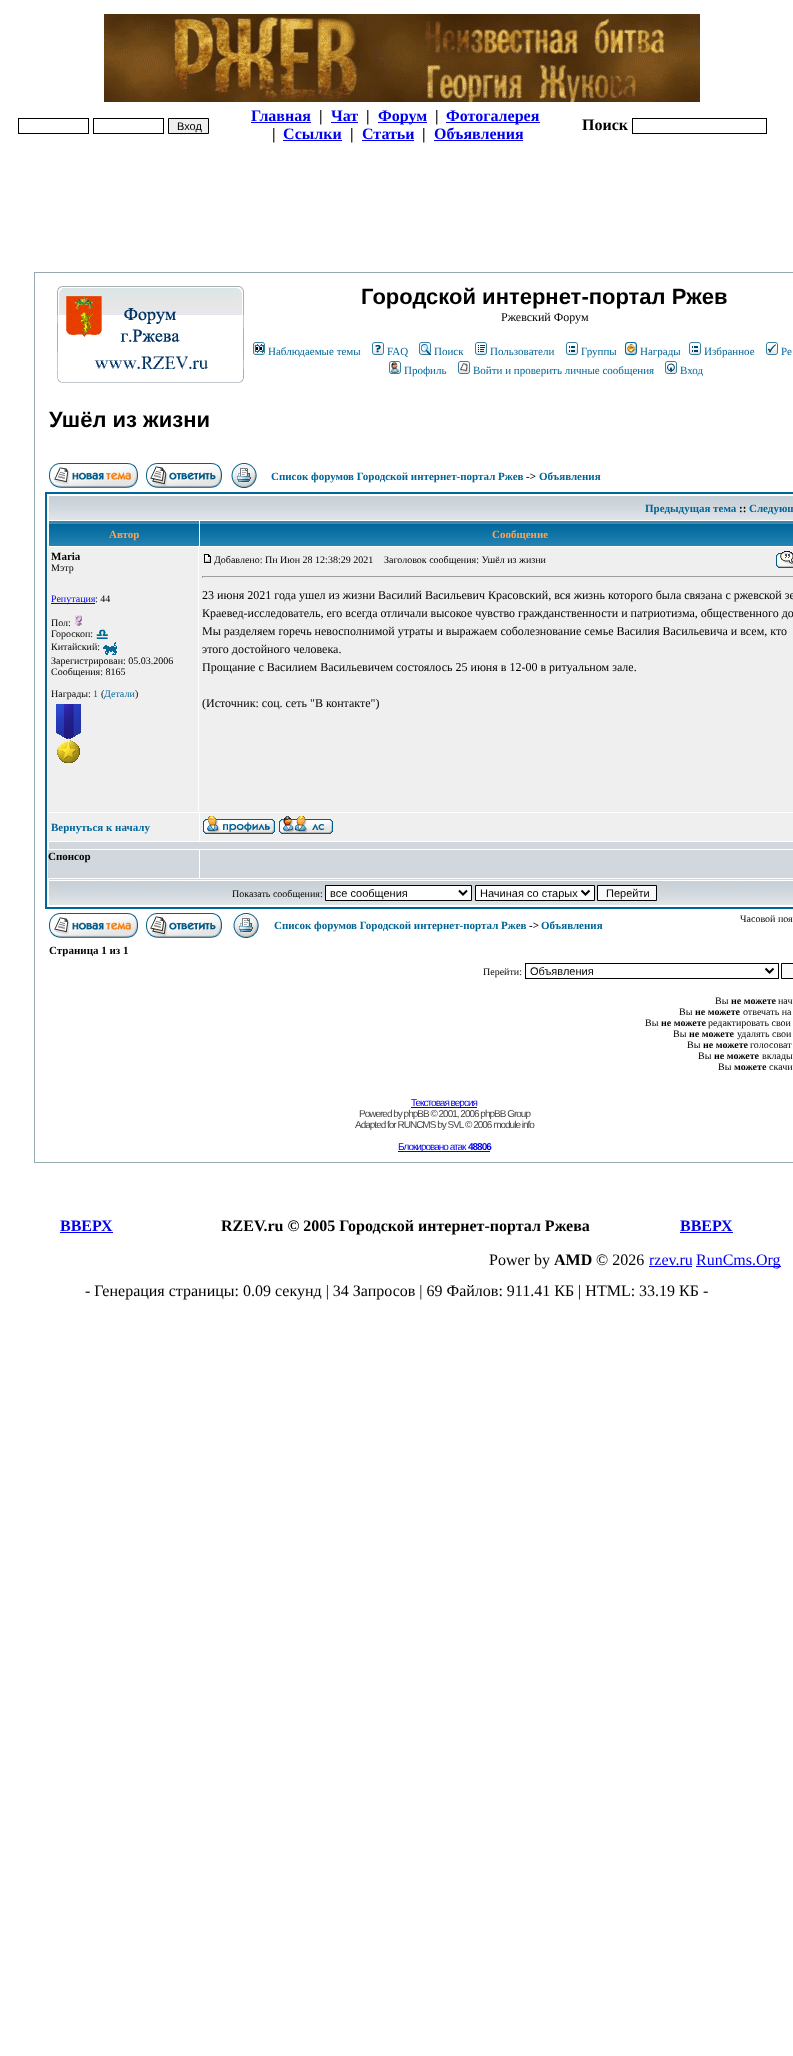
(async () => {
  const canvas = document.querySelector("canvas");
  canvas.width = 793;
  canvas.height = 2056;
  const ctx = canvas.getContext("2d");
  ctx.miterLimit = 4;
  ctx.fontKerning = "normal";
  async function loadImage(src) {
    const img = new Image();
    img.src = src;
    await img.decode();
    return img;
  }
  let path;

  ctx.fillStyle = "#ffffff";
  ctx.fillRect(0, 0, 793, 2056);
  ctx.drawImage(await loadImage("img/1.png"), 104, 14, 596, 88);
  ctx.strokeStyle = "#000000";
  ctx.strokeRect(18.5, 118.5, 70, 15);
  ctx.strokeRect(93.5, 118.5, 70, 15);
  ctx.fillStyle = "#efefef";
  ctx.beginPath();
  ctx.rect(168.5, 118.5, 40, 15);
  ctx.fill();
  ctx.stroke();
  for (const [x, y, w, h, color] of [
    [251, 122, 60, 1, "#0000ee"],
    [331, 122, 27, 1, "#0000ee"],
    [378, 122, 49, 1, "#0000ee"],
    [446, 122, 94, 1, "#0000ee"],
    [283, 140, 59, 1, "#0000ee"],
    [362, 140, 52, 1, "#0000ee"],
    [434, 140, 89, 1, "#0000ee"],
  ]) {
    ctx.fillStyle = color;
    ctx.fillRect(x, y, w, h);
  }
  ctx.strokeRect(632.5, 118.5, 134, 15);
  ctx.strokeStyle = "#98aab1";
  ctx.strokeRect(34.5, 272.5, 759, 890);
  ctx.drawImage(await loadImage("img/2.png"), 57, 286, 187, 97);
  ctx.drawImage(await loadImage("img/3.png"), 253, 342, 12, 13);
  ctx.drawImage(await loadImage("img/4.png"), 372, 342, 12, 13);
  ctx.drawImage(await loadImage("img/5.png"), 419, 342, 12, 13);
  ctx.drawImage(await loadImage("img/6.png"), 475, 342, 12, 13);
  ctx.drawImage(await loadImage("img/7.png"), 566, 342, 12, 13);
  ctx.drawImage(await loadImage("img/8.png"), 625, 342, 12, 13);
  ctx.drawImage(await loadImage("img/7.png"), 689, 342, 12, 13);
  ctx.drawImage(await loadImage("img/9.png"), 766, 342, 12, 13);
  ctx.drawImage(await loadImage("img/10.png"), 389, 361, 12, 13);
  ctx.drawImage(await loadImage("img/11.png"), 458, 361, 12, 13);
  ctx.drawImage(await loadImage("img/12.png"), 665, 361, 12, 13);
  ctx.drawImage(await loadImage("img/13.png"), 49, 463, 89, 25);
  ctx.drawImage(await loadImage("img/14.png"), 146, 463, 76, 25);
  ctx.drawImage(await loadImage("img/15.png"), 231, 463, 26, 25);
  ctx.strokeStyle = "#006699";
  ctx.lineWidth = 2;
  ctx.strokeRect(46, 493, 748, 415);
  ctx.drawImage(await loadImage("img/16.png"), 49, 496, 744, 24);
  ctx.drawImage(await loadImage("img/17.png"), 49, 521, 150, 25);
  ctx.drawImage(await loadImage("img/18.png"), 200, 521, 593, 25);
  ctx.fillStyle = "#efefef";
  ctx.fillRect(48, 547, 150, 265);
  ctx.fillStyle = "#0000ee";
  ctx.fillRect(51, 603, 44, 1);
  ctx.drawImage(await loadImage("img/19.png"), 75, 615, 7, 11);
  ctx.drawImage(await loadImage("img/20.png"), 96, 629, 12, 10);
  ctx.drawImage(await loadImage("img/21.png"), 103, 642, 14, 13);
  ctx.drawImage(await loadImage("img/22.png"), 56, 704, 25, 59);
  ctx.fillStyle = "#efefef";
  ctx.fillRect(199, 547, 594, 265);
  ctx.drawImage(await loadImage("img/23.png"), 204, 554, 7, 9);
  ctx.drawImage(await loadImage("img/24.png"), 776, 551, 17, 17);
  for (const [x, y, w, h, color] of [
    [202, 576, 591, 1, "#9f9f9f"],
    [202, 576, 1, 2, "#9f9f9f"],
    [48, 813, 151, 28, "#efefef"],
    [200, 813, 593, 28, "#efefef"],
  ]) {
    ctx.fillStyle = color;
    ctx.fillRect(x, y, w, h);
  }
  ctx.drawImage(await loadImage("img/25.png"), 203, 816, 72, 18);
  ctx.drawImage(await loadImage("img/26.png"), 279, 816, 54, 18);
  for (const [x, y, w, h, color] of [
    [49, 842, 744, 7, "#d1d7dc"],
    [48, 850, 151, 28, "#d1d7dc"],
    [200, 850, 593, 28, "#d1d7dc"],
    [49, 879, 744, 1, "#d1d7dc"],
  ]) {
    ctx.fillStyle = color;
    ctx.fillRect(x, y, w, h);
  }
  ctx.drawImage(await loadImage("img/16.png"), 49, 881, 744, 24);
  ctx.fillStyle = "#ffffff";
  ctx.beginPath();
  ctx.rect(325.5, 885.5, 146, 15);
  ctx.fill();
  ctx.strokeStyle = "#000000";
  ctx.lineWidth = 1;
  ctx.stroke();
  path = new Path2D("M459 890.5L463 894.5L467 890.5");
  ctx.lineWidth = 2;
  ctx.stroke(path);
  ctx.beginPath();
  ctx.rect(475.5, 885.5, 119, 15);
  ctx.fill();
  ctx.lineWidth = 1;
  ctx.stroke();
  path = new Path2D("M581.5 890.5L585.5 894.5L589.5 890.5");
  ctx.lineWidth = 2;
  ctx.stroke(path);
  ctx.fillStyle = "#fafafa";
  ctx.beginPath();
  ctx.rect(597.5, 885.5, 59, 15);
  ctx.fill();
  ctx.lineWidth = 1;
  ctx.stroke();
  ctx.drawImage(await loadImage("img/13.png"), 49, 913, 89, 25);
  ctx.drawImage(await loadImage("img/14.png"), 146, 913, 76, 25);
  ctx.drawImage(await loadImage("img/15.png"), 233, 913, 26, 25);
  ctx.strokeRect(525.5, 963.5, 253, 15);
  path = new Path2D("M765.5 968.5L769.5 972.5L773.5 968.5");
  ctx.lineWidth = 2;
  ctx.stroke(path);
  ctx.beginPath();
  ctx.rect(781.5, 963.5, 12, 15);
  ctx.fill();
  ctx.lineWidth = 1;
  ctx.stroke();
  for (const [x, y, w, h, color] of [
    [411, 1107, 66, 1, "#0000ee"],
    [398, 1151, 92, 1, "#0000ee"],
    [60, 1232, 53, 1, "#0000ee"],
    [680, 1232, 53, 1, "#0000ee"],
    [649, 1266, 43, 1, "#0000ee"],
    [696, 1266, 85, 1, "#0000ee"],
  ]) {
    ctx.fillStyle = color;
    ctx.fillRect(x, y, w, h);
  }
  ctx.font = "11px Liberation Sans";
  ctx.fillStyle = "#000000";
  ctx.fillText("Вход", 177, 130);
  ctx.font = "bold 16px Liberation Serif";
  ctx.fillStyle = "#0000ee";
  ctx.fillText("Главная", 251, 121);
  ctx.fillStyle = "#000000";
  ctx.fillText("|", 319, 121);
  ctx.fillStyle = "#0000ee";
  ctx.fillText("Чат", 331, 121);
  ctx.fillStyle = "#000000";
  ctx.fillText("|", 366, 121);
  ctx.fillStyle = "#0000ee";
  ctx.fillText("Форум", 378, 121);
  ctx.fillStyle = "#000000";
  ctx.fillText("|", 435, 121);
  ctx.fillStyle = "#0000ee";
  ctx.fillText("Фотогалерея", 446, 121);
  ctx.fillStyle = "#000000";
  ctx.fillText("|", 272, 139);
  ctx.fillStyle = "#0000ee";
  ctx.fillText("Ссылки", 283, 139);
  ctx.fillStyle = "#000000";
  ctx.fillText("|", 350, 139);
  ctx.fillStyle = "#0000ee";
  ctx.fillText("Статьи", 362, 139);
  ctx.fillStyle = "#000000";
  ctx.fillText("|", 422, 139);
  ctx.fillStyle = "#0000ee";
  ctx.fillText("Объявления", 434, 139);
  ctx.fillStyle = "#000000";
  ctx.fillText("Поиск", 582, 130);
  ctx.font = "bold 22px Liberation Sans";
  ctx.fillText("Городской интернет-портал Ржев", 361, 304);
  ctx.font = "12px Liberation Serif";
  ctx.fillText("Ржевский Форум", 501, 321);
  ctx.font = "11px Liberation Serif";
  ctx.fillStyle = "#006699";
  for (const [text, x, y] of [
    ["Наблюдаемые темы", 268, 355],
    ["FAQ", 387, 355],
    ["Поиск", 434, 355],
    ["Пользователи", 490, 355],
    ["Группы", 581, 355],
    ["Награды", 640, 355],
    ["Избранное", 704, 355],
    ["Ре", 781, 355],
    ["Профиль", 404, 374],
    ["Войти и проверить личные сообщения", 473, 374],
    ["Вход", 680, 374],
  ]) {
    ctx.fillText(text, x, y);
  }
  ctx.font = "bold 22px Liberation Sans";
  ctx.fillStyle = "#000000";
  ctx.fillText("Ушёл из жизни", 49, 427);
  ctx.font = "bold 11px Liberation Serif";
  ctx.fillStyle = "#006699";
  ctx.fillText("Список форумов Городской интернет-портал Ржев", 271, 480);
  ctx.fillStyle = "#000000";
  ctx.fillText("->", 526, 480);
  ctx.fillStyle = "#006699";
  ctx.fillText("Объявления", 539, 480);
  ctx.fillText("Предыдущая тема", 645, 512);
  ctx.fillStyle = "#000000";
  ctx.fillText("::", 739, 512);
  ctx.fillStyle = "#006699";
  ctx.fillText("Следующ", 749, 512);
  ctx.fillStyle = "#ffa34f";
  ctx.fillText("Автор", 109, 538);
  ctx.fillText("Сообщение", 492, 538);
  ctx.fillStyle = "#000000";
  ctx.fillText("Maria", 51, 560);
  ctx.font = "10px Liberation Serif";
  ctx.fillText("Мэтр", 51, 571);
  ctx.fillStyle = "#0000ee";
  ctx.fillText("Репутация", 51, 602);
  ctx.fillStyle = "#000000";
  for (const [text, x, y] of [
    [": 44", 95, 602],
    ["Пол:", 51, 626],
    ["Гороскоп:", 51, 637],
    ["Китайский:", 51, 650],
    ["Зарегистрирован: 05.03.2006", 51, 664],
    ["Сообщения: 8165", 51, 675],
    ["Награды:", 51, 697],
  ]) {
    ctx.fillText(text, x, y);
  }
  ctx.fillStyle = "#006699";
  ctx.fillText("1", 93, 697);
  ctx.fillStyle = "#000000";
  ctx.fillText("(", 101, 697);
  ctx.fillStyle = "#006699";
  ctx.fillText("Детали", 104, 697);
  ctx.fillStyle = "#000000";
  for (const [text, x, y] of [
    [")", 135, 697],
    ["Добавлено: Пн Июн 28 12:38:29 2021", 214, 563],
    ["Заголовок сообщения: Ушёл из жизни", 384, 563],
  ]) {
    ctx.fillText(text, x, y);
  }
  ctx.font = "12px Liberation Serif";
  for (const [text, x, y] of [
    ["23 июня 2021 года ушел из жизни Василий Васильевич Красовский, вся жизнь которого была связана с ржевской зе", 202, 599],
    ["Краевед-исследователь, его всегда отличали высокое чувство гражданственности и патриотизма, общественного до", 202, 617],
    ["Мы разделяем горечь невосполнимой утраты и выражаем соболезнование семье Василия Васильевича и всем, кто", 202, 635],
    ["этого достойного человека.", 202, 653],
    ["Прощание с Василием Васильевичем состоялось 25 июня в 12-00 в ритуальном зале.", 202, 671],
    ["(Источник: соц. сеть \"В контакте\")", 202, 707],
  ]) {
    ctx.fillText(text, x, y);
  }
  ctx.font = "bold 11px Liberation Serif";
  ctx.fillStyle = "#006699";
  ctx.fillText("Вернуться к началу", 51, 831);
  ctx.fillStyle = "#000000";
  ctx.fillText("Спонсор", 48, 860);
  ctx.font = "10px Liberation Serif";
  ctx.fillText("Показать сообщения:", 232, 897);
  ctx.font = "11px Liberation Sans";
  for (const [text, x, y] of [
    ["все сообщения", 330, 897],
    ["Начиная со старых", 480, 897],
    ["Перейти", 606, 897],
  ]) {
    ctx.fillText(text, x, y);
  }
  ctx.font = "10px Liberation Serif";
  ctx.fillText("Часовой поя", 740, 922);
  ctx.font = "bold 11px Liberation Serif";
  ctx.fillStyle = "#006699";
  ctx.fillText("Список форумов Городской интернет-портал Ржев", 274, 929);
  ctx.fillStyle = "#000000";
  ctx.fillText("->", 529, 929);
  ctx.fillStyle = "#006699";
  ctx.fillText("Объявления", 541, 929);
  ctx.fillStyle = "#000000";
  ctx.fillText("Страница 1 из 1", 49, 954);
  ctx.font = "10px Liberation Serif";
  ctx.fillText("Перейти:", 483, 975);
  ctx.font = "11px Liberation Sans";
  ctx.fillText("Объявления", 530, 975);
  ctx.font = "10px Liberation Serif";
  ctx.fillText("Вы", 715, 1004);
  ctx.font = "bold 10px Liberation Serif";
  ctx.fillText("не можете", 731, 1004);
  ctx.font = "10px Liberation Serif";
  ctx.fillText("нач", 778, 1004);
  ctx.fillText("Вы", 679, 1015);
  ctx.font = "bold 10px Liberation Serif";
  ctx.fillText("не можете", 695, 1015);
  ctx.font = "10px Liberation Serif";
  ctx.fillText("отвечать на", 743, 1015);
  ctx.fillText("Вы", 645, 1026);
  ctx.font = "bold 10px Liberation Serif";
  ctx.fillText("не можете", 661, 1026);
  ctx.font = "10px Liberation Serif";
  ctx.fillText("редактировать свои", 708, 1026);
  ctx.fillText("Вы", 673, 1037);
  ctx.font = "bold 10px Liberation Serif";
  ctx.fillText("не можете", 689, 1037);
  ctx.font = "10px Liberation Serif";
  ctx.fillText("удалять свои", 737, 1037);
  ctx.fillText("Вы", 687, 1048);
  ctx.font = "bold 10px Liberation Serif";
  ctx.fillText("не можете", 703, 1048);
  ctx.font = "10px Liberation Serif";
  ctx.fillText("голосоват", 750, 1048);
  ctx.fillText("Вы", 698, 1059);
  ctx.font = "bold 10px Liberation Serif";
  ctx.fillText("не можете", 714, 1059);
  ctx.font = "10px Liberation Serif";
  ctx.fillText("вклады", 762, 1059);
  ctx.fillText("Вы", 718, 1070);
  ctx.font = "bold 10px Liberation Serif";
  ctx.fillText("можете", 734, 1070);
  ctx.font = "10px Liberation Serif";
  ctx.fillText("скачи", 769, 1070);
  ctx.letterSpacing = "-1px";
  ctx.font = "10px Liberation Sans";
  ctx.fillStyle = "#0000ee";
  ctx.fillText("Текстовая версия", 411, 1106);
  ctx.fillStyle = "#444444";
  for (const [text, x, y] of [
    ["Powered by phpBB © 2001, 2006 phpBB Group", 359, 1117],
    ["Adapted for RUNCMS by SVL", 355, 1128],
    ["© 2006 module info", 465, 1128],
  ]) {
    ctx.fillText(text, x, y);
  }
  ctx.fillStyle = "#0000ee";
  ctx.fillText("Блокировано атак", 398, 1150);
  ctx.font = "bold 10px Liberation Sans";
  ctx.fillText("48806", 468, 1150);
  ctx.letterSpacing = "0px";
  ctx.font = "bold 16px Liberation Serif";
  ctx.fillText("ВВЕРХ", 60, 1231);
  ctx.fillStyle = "#000000";
  ctx.fillText("RZEV.ru © 2005 Городской интернет-портал Ржева", 221, 1231);
  ctx.fillStyle = "#0000ee";
  ctx.fillText("ВВЕРХ", 680, 1231);
  ctx.font = "16px Liberation Serif";
  ctx.fillStyle = "#000000";
  ctx.fillText("Power by", 489, 1265);
  ctx.font = "bold 16px Liberation Serif";
  ctx.fillText("AMD", 554, 1265);
  ctx.font = "16px Liberation Serif";
  ctx.fillText("© 2026", 596, 1265);
  ctx.fillStyle = "#0000ee";
  ctx.fillText("rzev.ru", 649, 1265);
  ctx.fillText("RunCms.Org", 696, 1265);
  ctx.fillStyle = "#000000";
  ctx.fillText("- Генерация страницы: 0.09 секунд | 34 Запросов | 69 Файлов: 911.41 КБ | HTML: 33.19 КБ -", 85, 1296);
})();
